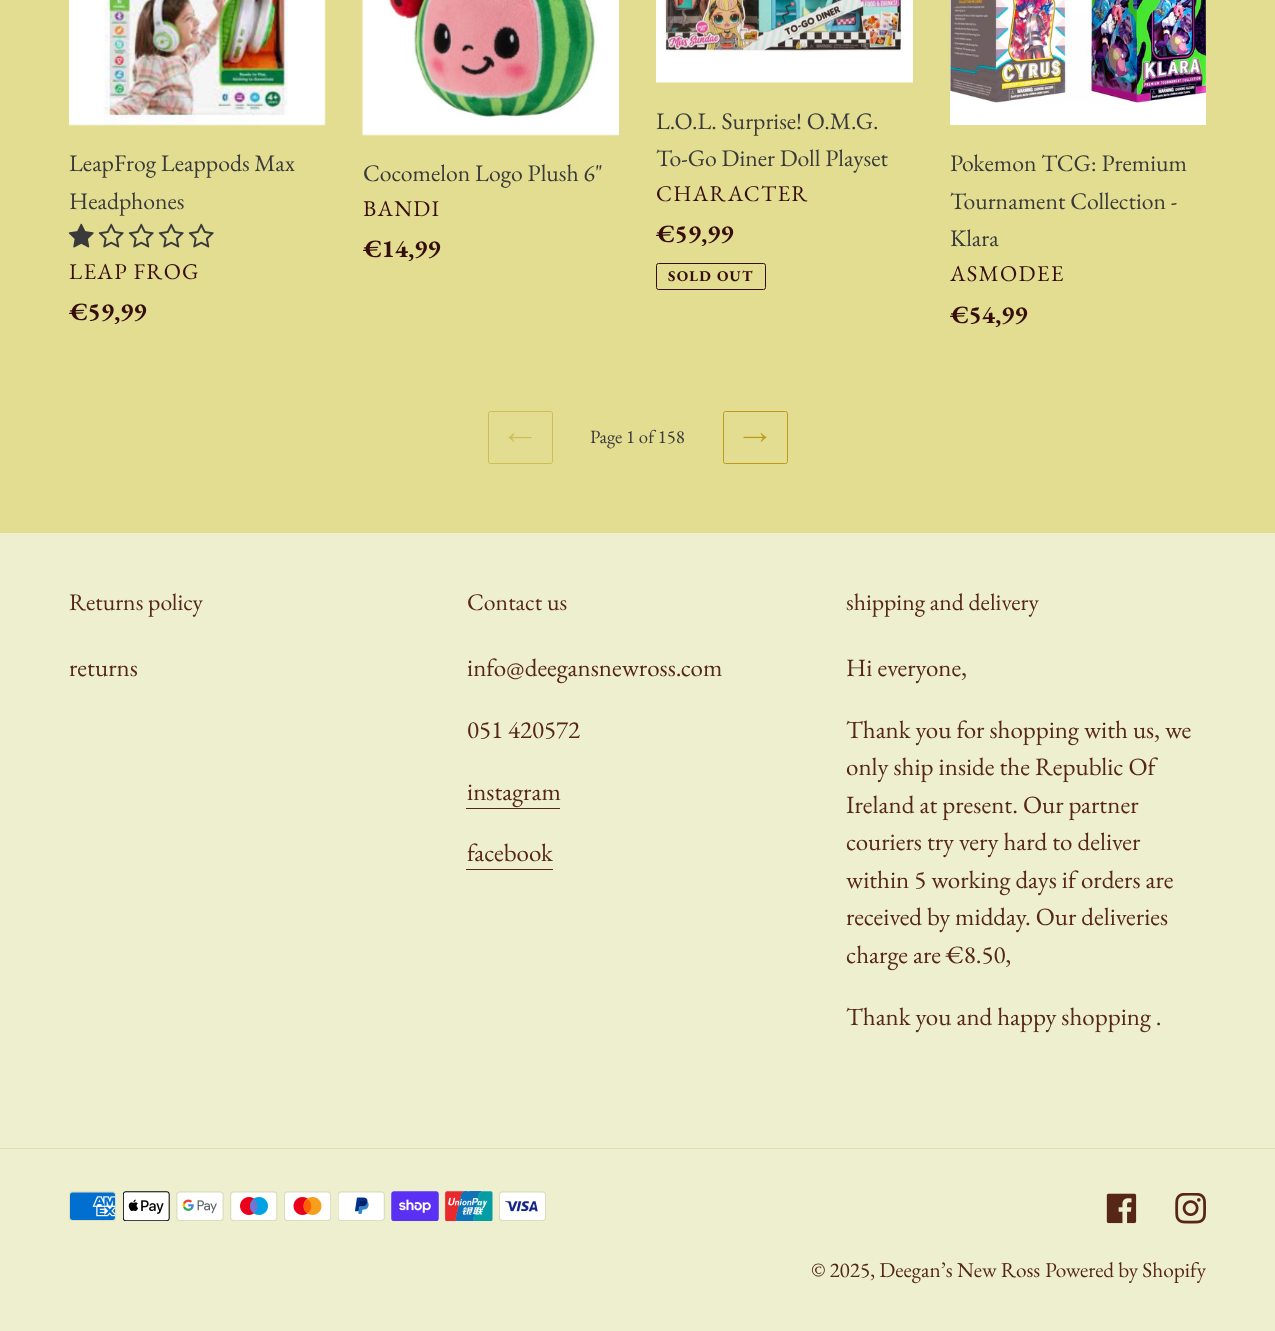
(async () => {
  const canvas = document.querySelector("canvas");
  canvas.width = 1275;
  canvas.height = 1331;
  const ctx = canvas.getContext("2d");
  ctx.miterLimit = 4;
  ctx.fontKerning = "normal";
  async function loadImage(src) {
    const img = new Image();
    img.src = src;
    await img.decode();
    return img;
  }

  ctx.fillStyle = "#e3dd92";
  ctx.fillRect(0, 0, 1275, 1331);
  ctx.drawImage(await loadImage("img/1.png"), 69, 0, 257, 126);
  ctx.drawImage(await loadImage("img/2.png"), 68, 223, 26, 25);
  ctx.drawImage(await loadImage("img/3.png"), 98, 223, 26, 25);
  ctx.drawImage(await loadImage("img/3.png"), 128, 223, 26, 25);
  ctx.drawImage(await loadImage("img/3.png"), 158, 223, 26, 25);
  ctx.drawImage(await loadImage("img/3.png"), 188, 223, 26, 25);
  ctx.drawImage(await loadImage("img/4.png"), 361, 0, 258, 136);
  ctx.drawImage(await loadImage("img/5.png"), 656, 0, 257, 83);
  ctx.beginPath();
  ctx.roundRect(656.5, 263.5, 109, 26, 2);
  ctx.strokeStyle = "#360d0d";
  ctx.stroke();
  ctx.drawImage(await loadImage("img/6.png"), 950, 0, 256, 125);
  ctx.beginPath();
  ctx.roundRect(488.5, 411.5, 64, 52, 2);
  ctx.strokeStyle = "#d0bc56";
  ctx.stroke();
  ctx.drawImage(await loadImage("img/7.png"), 508, 433, 24, 9);
  ctx.beginPath();
  ctx.roundRect(723.5, 411.5, 64, 52, 2);
  ctx.strokeStyle = "#bd9b19";
  ctx.stroke();
  ctx.drawImage(await loadImage("img/8.png"), 743, 433, 24, 9);
  for (const [x, y, w, h, color] of [
    [0, 533, 1275, 798, "#edefce"],
    [466, 808, 94, 1, "#562617"],
    [466, 869, 87, 1, "#562617"],
    [0, 1148, 1275, 1, "#dfe2a8"],
  ]) {
    ctx.fillStyle = color;
    ctx.fillRect(x, y, w, h);
  }
  ctx.drawImage(await loadImage("img/9.png"), 69, 1191, 47, 30);
  ctx.drawImage(await loadImage("img/10.png"), 123, 1191, 47, 30);
  ctx.drawImage(await loadImage("img/11.png"), 176, 1191, 48, 30);
  ctx.drawImage(await loadImage("img/12.png"), 230, 1191, 48, 30);
  ctx.drawImage(await loadImage("img/13.png"), 284, 1191, 47, 30);
  ctx.drawImage(await loadImage("img/14.png"), 338, 1191, 47, 30);
  ctx.drawImage(await loadImage("img/15.png"), 391, 1191, 48, 30);
  ctx.drawImage(await loadImage("img/16.png"), 445, 1191, 48, 30);
  ctx.drawImage(await loadImage("img/17.png"), 499, 1191, 47, 30);
  ctx.drawImage(await loadImage("img/18.png"), 1106, 1193, 31, 31);
  ctx.drawImage(await loadImage("img/19.png"), 1175, 1193, 31, 31);
  ctx.font = "23.75px EB Garamond";
  ctx.fillStyle = "#3a3a3a";
  ctx.fillText("LeapFrog Leappods Max", 69, 171);
  ctx.fillText("Headphones", 69, 209);
  ctx.letterSpacing = "1.25px";
  ctx.font = "22.5px EB Garamond";
  ctx.fillStyle = "#360d0d";
  ctx.fillText("LEAP FROG", 69, 279);
  ctx.letterSpacing = "0px";
  ctx.font = "bold 25px EB Garamond";
  ctx.fillText("€59,99", 69, 320);
  ctx.font = "23.75px EB Garamond";
  ctx.fillStyle = "#3a3a3a";
  ctx.fillText("Cocomelon Logo Plush 6\"", 363, 181);
  ctx.letterSpacing = "1.25px";
  ctx.font = "22.5px EB Garamond";
  ctx.fillStyle = "#360d0d";
  ctx.fillText("BANDI", 363, 216);
  ctx.letterSpacing = "0px";
  ctx.font = "bold 25px EB Garamond";
  ctx.fillText("€14,99", 363, 257);
  ctx.font = "23.75px EB Garamond";
  ctx.fillStyle = "#3a3a3a";
  ctx.fillText("L.O.L. Surprise! O.M.G.", 656, 129);
  ctx.fillText("To-Go Diner Doll Playset", 656, 166);
  ctx.letterSpacing = "1.25px";
  ctx.font = "22.5px EB Garamond";
  ctx.fillStyle = "#360d0d";
  ctx.fillText("CHARACTER", 656, 201);
  ctx.letterSpacing = "0px";
  ctx.font = "bold 25px EB Garamond";
  ctx.fillText("€59,99", 656, 242);
  ctx.letterSpacing = "1.25px";
  ctx.font = "bold 15px EB Garamond";
  ctx.fillText("SOLD OUT", 668, 281);
  ctx.letterSpacing = "0px";
  ctx.font = "23.75px EB Garamond";
  ctx.fillStyle = "#3a3a3a";
  for (const [text, x, y] of [
    ["Pokemon TCG: Premium", 950, 171],
    ["Tournament Collection -", 950, 209],
    ["Klara", 950, 246],
  ]) {
    ctx.fillText(text, x, y);
  }
  ctx.letterSpacing = "1.25px";
  ctx.font = "22.5px EB Garamond";
  ctx.fillStyle = "#360d0d";
  ctx.fillText("ASMODEE", 950, 281);
  ctx.letterSpacing = "0px";
  ctx.font = "bold 25px EB Garamond";
  ctx.fillText("€54,99", 950, 323);
  ctx.font = "18.75px EB Garamond";
  ctx.fillStyle = "#3a3a3a";
  ctx.fillText("Page 1 of 158", 590, 443);
  ctx.font = "23.75px EB Garamond";
  ctx.fillStyle = "#562617";
  ctx.fillText("Returns policy", 69, 610);
  ctx.font = "25px EB Garamond";
  ctx.fillText("returns", 69, 676);
  ctx.font = "23.75px EB Garamond";
  ctx.fillText("Contact us", 467, 610);
  ctx.font = "25px EB Garamond";
  for (const [text, x, y] of [
    ["info@deegansnewross.com", 467, 676],
    ["051 420572", 467, 738],
    ["instagram", 467, 800],
    ["facebook", 467, 861],
  ]) {
    ctx.fillText(text, x, y);
  }
  ctx.font = "23.75px EB Garamond";
  ctx.fillText("shipping and delivery", 846, 610);
  ctx.font = "25px EB Garamond";
  for (const [text, x, y] of [
    ["Hi everyone,", 846, 676],
    ["Thank you for shopping with us, we", 846, 738],
    ["only ship inside the Republic Of", 846, 775],
    ["Ireland at present. Our partner", 846, 813],
    ["couriers try very hard to deliver", 846, 850],
    ["within 5 working days if orders are", 846, 888],
    ["received by midday. Our deliveries", 846, 925],
    ["charge are €8.50,", 846, 963],
    ["Thank you and happy shopping .", 846, 1025],
  ]) {
    ctx.fillText(text, x, y);
  }
  ctx.font = "21.25px EB Garamond";
  ctx.fillText("© 2025, Deegan’s New Ross", 811, 1277);
  ctx.fillText("Powered by Shopify", 1045, 1277);
})();
